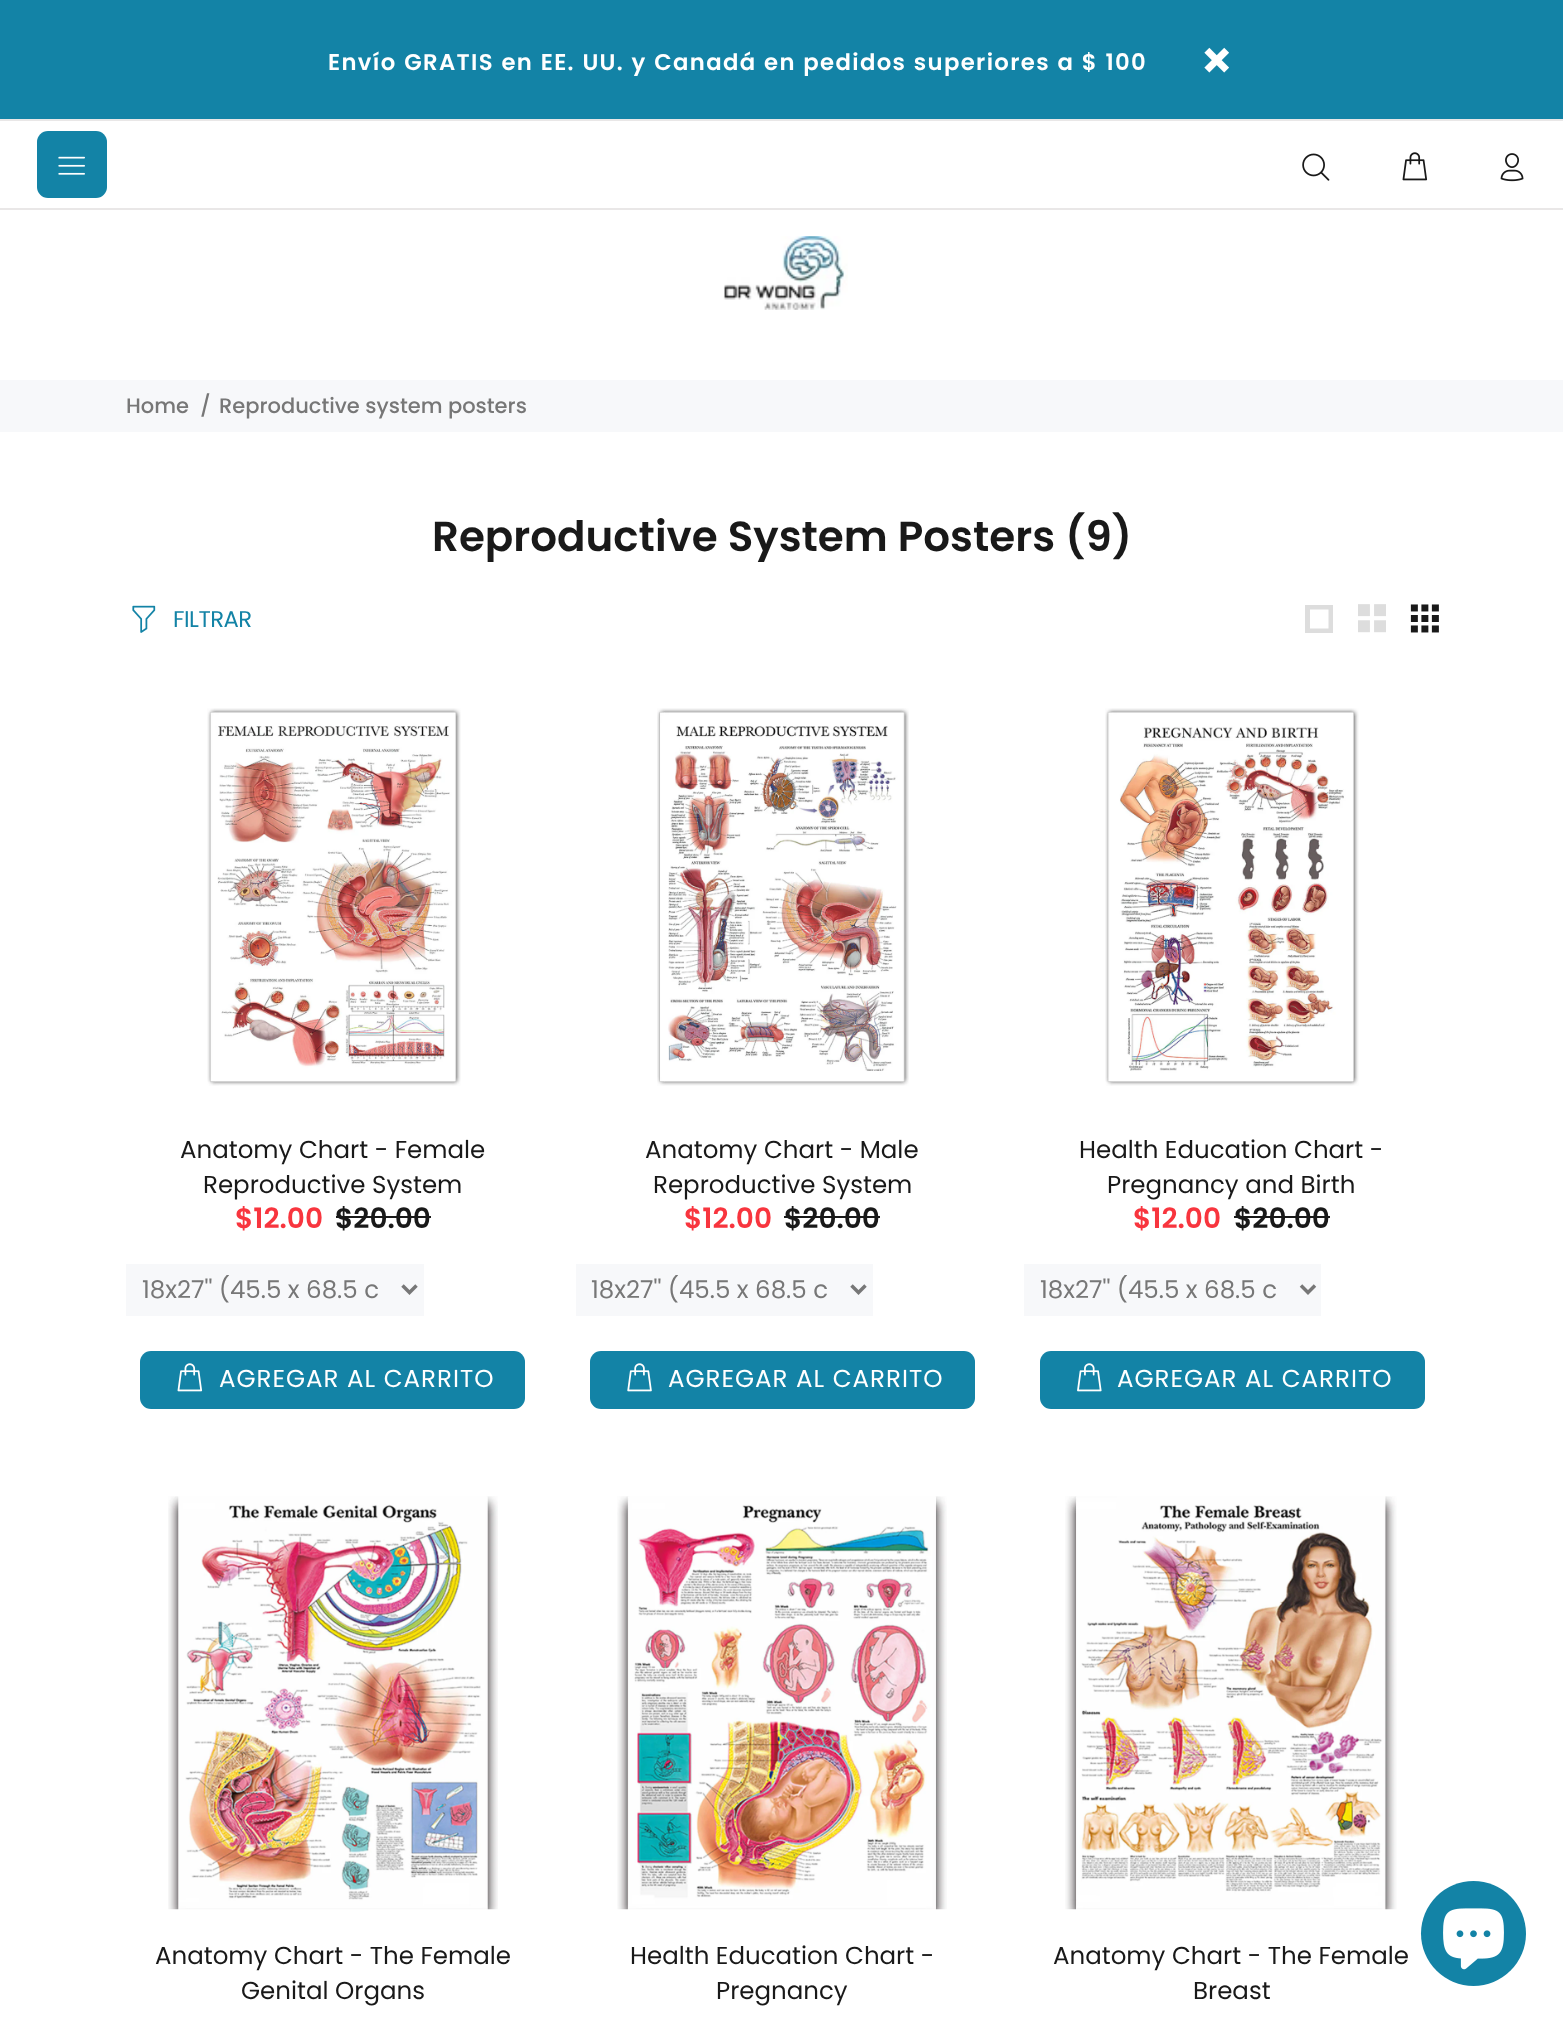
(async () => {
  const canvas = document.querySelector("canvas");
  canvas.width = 1563;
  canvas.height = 2022;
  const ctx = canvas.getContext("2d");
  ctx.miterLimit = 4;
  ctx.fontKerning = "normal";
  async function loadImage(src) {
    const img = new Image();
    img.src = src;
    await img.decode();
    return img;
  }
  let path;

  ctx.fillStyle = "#ffffff";
  ctx.fillRect(0, 0, 1563, 2022);
  ctx.fillStyle = "#1383a6";
  ctx.fillRect(0, 0, 1563, 119);
  ctx.drawImage(await loadImage("img/1.png"), 1204, 47, 25, 26);
  ctx.fillStyle = "#e9e7e7";
  ctx.fillRect(0, 119, 1563, 2);
  ctx.fillStyle = "#1383a6";
  ctx.beginPath();
  ctx.roundRect(37, 131, 70, 67, 11);
  ctx.fill();
  ctx.drawImage(await loadImage("img/2.png"), 58, 156, 27, 19);
  ctx.drawImage(await loadImage("img/3.png"), 1302, 153, 28, 28);
  ctx.drawImage(await loadImage("img/4.png"), 1402, 152, 26, 29);
  ctx.drawImage(await loadImage("img/5.png"), 1500, 153, 24, 29);
  ctx.fillStyle = "#e9e7e7";
  ctx.fillRect(0, 208, 1563, 2);
  ctx.drawImage(await loadImage("img/6.png"), 723, 236, 125, 74);
  ctx.fillStyle = "#f7f8fa";
  ctx.fillRect(0, 380, 1563, 52);
  ctx.drawImage(await loadImage("img/7.png"), 132, 605, 24, 28);
  ctx.fillStyle = "#dddddd";
  path = new Path2D("M1305 633V605H1333V633ZM1310 628.5H1328.5V609.5H1310Z");
  ctx.fill(path);
  ctx.drawImage(await loadImage("img/8.png"), 1358, 604, 28, 29);
  ctx.drawImage(await loadImage("img/9.png"), 1410, 604, 29, 29);
  ctx.drawImage(await loadImage("img/10.png"), 207, 708, 254, 378);
  ctx.fillStyle = "#191919";
  ctx.fillRect(336, 1216, 95, 2);
  ctx.fillStyle = "#f7f8fa";
  ctx.fillRect(126, 1264, 298, 52);
  path = new Path2D("M402.5 1285.5L409.5 1292.5L416.5 1285.5");
  ctx.strokeStyle = "#777777";
  ctx.lineWidth = 3.5;
  ctx.stroke(path);
  ctx.fillStyle = "#1383a6";
  ctx.beginPath();
  ctx.roundRect(140, 1351, 385, 58, 11);
  ctx.fill();
  ctx.drawImage(await loadImage("img/11.png"), 177, 1363, 26, 29);
  ctx.drawImage(await loadImage("img/12.png"), 657, 708, 252, 378);
  ctx.fillStyle = "#191919";
  ctx.fillRect(784, 1216, 96, 2);
  ctx.fillStyle = "#f7f8fa";
  ctx.fillRect(576, 1264, 297, 52);
  path = new Path2D("M851.5 1285.5L858.5 1292.5L865.5 1285.5");
  ctx.stroke(path);
  ctx.fillStyle = "#1383a6";
  ctx.beginPath();
  ctx.roundRect(590, 1351, 385, 58, 11);
  ctx.fill();
  ctx.drawImage(await loadImage("img/13.png"), 627, 1363, 25, 29);
  ctx.drawImage(await loadImage("img/14.png"), 1105, 708, 254, 378);
  ctx.fillStyle = "#191919";
  ctx.fillRect(1234, 1216, 96, 2);
  ctx.fillStyle = "#f7f8fa";
  ctx.fillRect(1024, 1264, 297, 52);
  path = new Path2D("M1301 1285.5L1308 1292.5L1315 1285.5");
  ctx.stroke(path);
  ctx.fillStyle = "#1383a6";
  ctx.beginPath();
  ctx.roundRect(1040, 1351, 385, 58, 11);
  ctx.fill();
  ctx.drawImage(await loadImage("img/15.png"), 1077, 1363, 25, 29);
  ctx.drawImage(await loadImage("img/16.png"), 168, 1496, 330, 414);
  ctx.drawImage(await loadImage("img/17.png"), 617, 1496, 330, 414);
  ctx.drawImage(await loadImage("img/18.png"), 1065, 1496, 332, 414);
  ctx.beginPath();
  ctx.arc(1473.5, 1933.5, 52.5, 0, Math.PI * 2);
  ctx.fill();
  ctx.drawImage(await loadImage("img/19.png"), 1443, 1908, 61, 62);
  ctx.letterSpacing = "1.35px";
  ctx.wordSpacing = "0.75px";
  ctx.font = "600 22.75px Poppins";
  ctx.fillStyle = "#ffffff";
  ctx.fillText("Envío GRATIS en EE. UU. y Canadá en pedidos superiores a $ 100", 328, 70);
  ctx.letterSpacing = "0px";
  ctx.wordSpacing = "0px";
  ctx.font = "500 21px Poppins";
  ctx.fillStyle = "#777777";
  for (const [text, x, y] of [
    ["Home", 126, 413],
    ["/", 200, 413],
    ["Reproductive system posters", 219, 413],
  ]) {
    ctx.fillText(text, x, y);
  }
  ctx.font = "600 42px Poppins";
  ctx.fillStyle = "#191919";
  ctx.fillText("Reproductive System Posters (9)", 432, 551);
  ctx.letterSpacing = "-0.5px";
  ctx.font = "22.75px Poppins";
  ctx.fillStyle = "#1383a6";
  ctx.fillText("FILTRAR", 173, 627);
  ctx.letterSpacing = "0px";
  ctx.font = "24.5px Poppins";
  ctx.fillStyle = "#191919";
  ctx.fillText("Anatomy Chart - Female", 180, 1158);
  ctx.fillText("Reproductive System", 203, 1193);
  ctx.font = "600 28px Poppins";
  ctx.fillStyle = "#f8353e";
  ctx.fillText("$12.00", 235, 1228);
  ctx.fillStyle = "#191919";
  ctx.fillText("$20.00", 335, 1228);
  ctx.font = "24.5px Poppins";
  ctx.fillStyle = "#777777";
  ctx.fillText("18x27'' (45.5 x 68.5 c", 142, 1298);
  ctx.letterSpacing = "1px";
  ctx.fillStyle = "#ffffff";
  ctx.fillText("AGREGAR AL CARRITO", 219, 1387);
  ctx.letterSpacing = "0px";
  ctx.fillStyle = "#191919";
  ctx.fillText("Anatomy Chart - Male", 645, 1158);
  ctx.fillText("Reproductive System", 653, 1193);
  ctx.font = "600 28px Poppins";
  ctx.fillStyle = "#f8353e";
  ctx.fillText("$12.00", 684, 1228);
  ctx.fillStyle = "#191919";
  ctx.fillText("$20.00", 784, 1228);
  ctx.font = "24.5px Poppins";
  ctx.fillStyle = "#777777";
  ctx.fillText("18x27'' (45.5 x 68.5 c", 591, 1298);
  ctx.letterSpacing = "1px";
  ctx.fillStyle = "#ffffff";
  ctx.fillText("AGREGAR AL CARRITO", 668, 1387);
  ctx.letterSpacing = "0px";
  ctx.fillStyle = "#191919";
  ctx.fillText("Health Education Chart -", 1079, 1158);
  ctx.fillText("Pregnancy and Birth", 1107, 1193);
  ctx.font = "600 28px Poppins";
  ctx.fillStyle = "#f8353e";
  ctx.fillText("$12.00", 1133, 1228);
  ctx.fillStyle = "#191919";
  ctx.fillText("$20.00", 1234, 1228);
  ctx.font = "24.5px Poppins";
  ctx.fillStyle = "#777777";
  ctx.fillText("18x27'' (45.5 x 68.5 c", 1040, 1298);
  ctx.letterSpacing = "1px";
  ctx.fillStyle = "#ffffff";
  ctx.fillText("AGREGAR AL CARRITO", 1117, 1387);
  ctx.letterSpacing = "0px";
  ctx.fillStyle = "#191919";
  for (const [text, x, y] of [
    ["Anatomy Chart - The Female", 155, 1964],
    ["Genital Organs", 241, 1999],
    ["Health Education Chart -", 630, 1964],
    ["Pregnancy", 716, 1999],
    ["Anatomy Chart - The Female", 1053, 1964],
    ["Breast", 1193, 1999],
  ]) {
    ctx.fillText(text, x, y);
  }
})();
